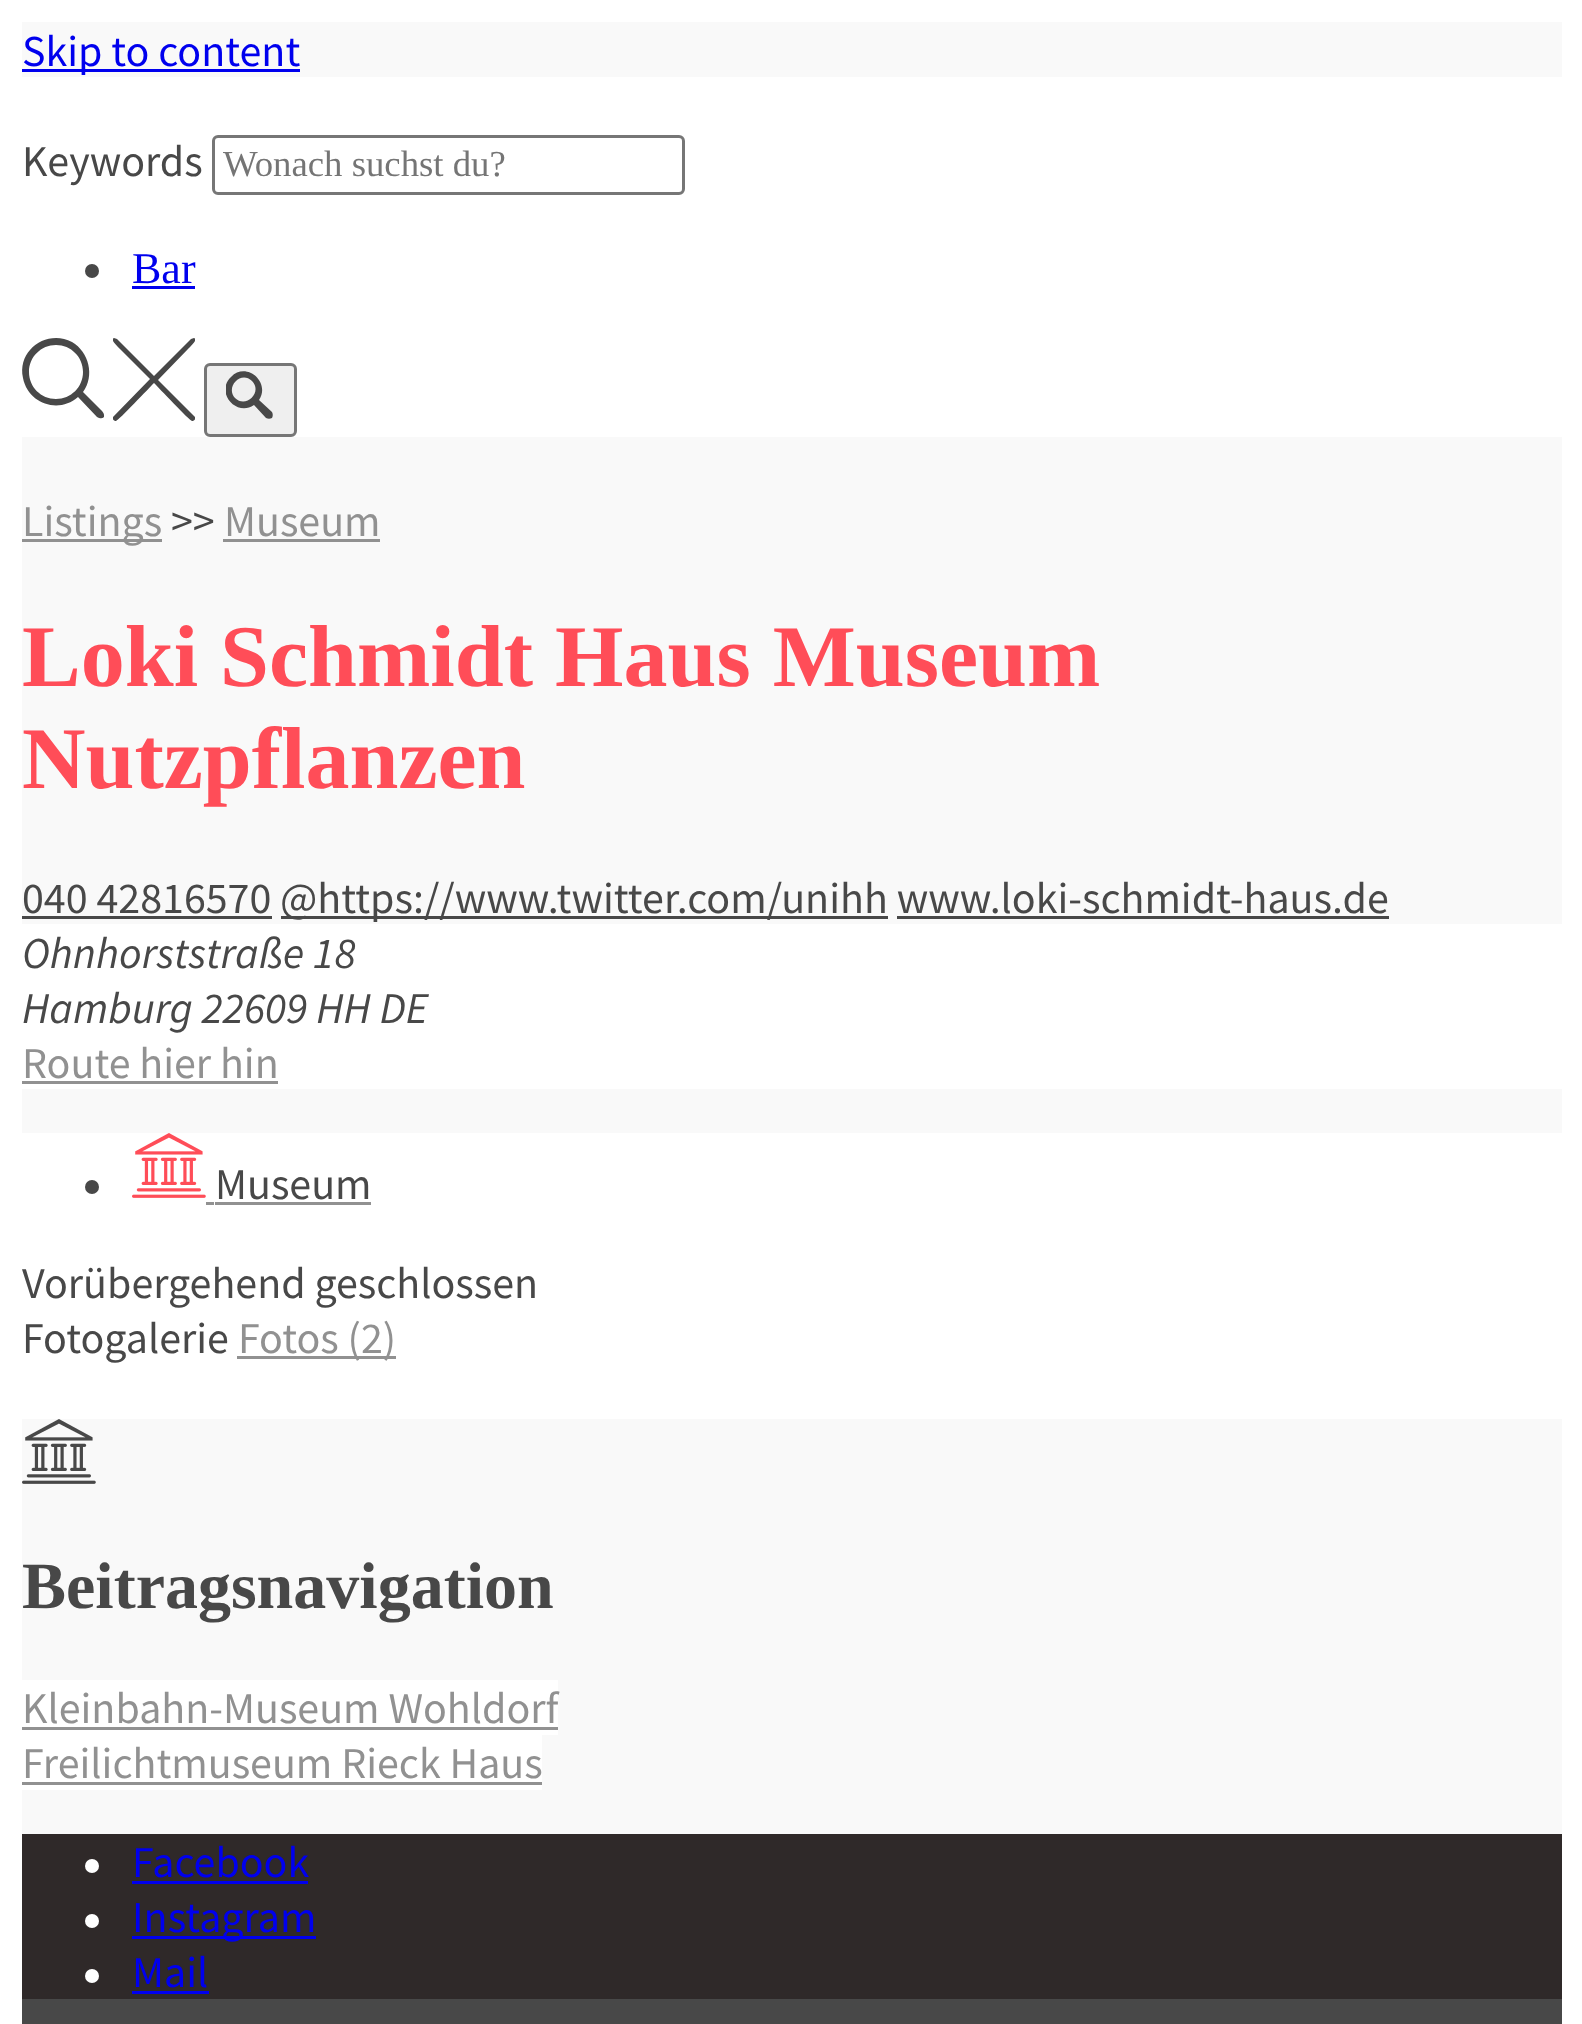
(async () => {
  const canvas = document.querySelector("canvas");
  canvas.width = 1582;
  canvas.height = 2024;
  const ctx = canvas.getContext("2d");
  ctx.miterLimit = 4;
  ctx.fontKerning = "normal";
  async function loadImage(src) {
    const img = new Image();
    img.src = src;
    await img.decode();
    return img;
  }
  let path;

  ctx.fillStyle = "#ffffff";
  ctx.fillRect(0, 0, 1582, 2024);
  for (const [x, y, w, h, color] of [
    [22, 22, 1540, 1812, "#f9f9f9"],
    [22, 69, 278, 3, "#0000ee"],
    [22, 77, 1540, 360, "#ffffff"],
  ]) {
    ctx.fillStyle = color;
    ctx.fillRect(x, y, w, h);
  }
  ctx.beginPath();
  ctx.roundRect(213.5, 136.5, 470, 57, 4.5);
  ctx.strokeStyle = "#767676";
  ctx.lineWidth = 3;
  ctx.stroke();
  ctx.fillStyle = "#484848";
  ctx.beginPath();
  ctx.arc(92, 271, 7, 0, Math.PI * 2);
  ctx.fill();
  ctx.fillStyle = "#0000ee";
  ctx.fillRect(132, 286, 63, 3);
  ctx.fillStyle = "#484848";
  path = new Path2D("M104 415C104 414 103 412 102 411L83 392C95 376 89 352 72 342C47 329 17 350 23 378C28 404 59 414 78 397L97 417C100 419 105 419 104 415ZM56 399C41 399 29 387 29 372C29 357 41 345 56 345C71 345 83 357 83 372C83 387 71 399 56 399Z");
  ctx.fill(path, "evenodd");
  ctx.save();
  ctx.beginPath();
  ctx.rect(113, 338, 82, 83);
  ctx.clip();
  path = new Path2D("M158 380L188 349C192 345 198 340 194 338L191 339L154 376L117 339L114 338C110 340 116 345 120 349L150 379L113 417C112 419 114 421 116 421C118 421 150 387 154 383C158 387 190 421 192 421C194 421 196 419 195 417Z");
  ctx.fill(path, "evenodd");
  ctx.restore();
  ctx.fillStyle = "#efefef";
  ctx.beginPath();
  ctx.roundRect(205.5, 364.5, 90, 71, 4.5);
  ctx.fill();
  ctx.stroke();
  ctx.save();
  ctx.beginPath();
  ctx.rect(226, 371, 49, 50);
  ctx.clip();
  ctx.fillStyle = "#484848";
  path = new Path2D("M272 418C270 419 268 419 266 418L254 405C236 417 215 392 231 377C246 361 271 382 259 400L272 412C273 414 273 416 272 418ZM252 381C241 370 225 387 235 398C246 409 263 392 252 381Z");
  ctx.fill(path, "evenodd");
  ctx.restore();
  for (const [x, y, w, h, color] of [
    [22, 539, 140, 3, "#919191"],
    [223, 539, 157, 3, "#919191"],
    [22, 916, 250, 3, "#484848"],
    [281, 916, 607, 3, "#484848"],
    [897, 916, 492, 3, "#484848"],
    [22, 924, 1540, 165, "#ffffff"],
    [22, 1081, 256, 3, "#919191"],
    [22, 1133, 1540, 286, "#ffffff"],
  ]) {
    ctx.fillStyle = color;
    ctx.fillRect(x, y, w, h);
  }
  ctx.fillStyle = "#484848";
  ctx.beginPath();
  ctx.arc(92, 1187, 7, 0, Math.PI * 2);
  ctx.fill();
  ctx.drawImage(await loadImage("img/1.png"), 132, 1133, 74, 65);
  for (const [x, y, w, h, color] of [
    [206, 1202, 8, 3, "#919191"],
    [215, 1202, 156, 3, "#919191"],
    [237, 1356, 159, 3, "#919191"],
  ]) {
    ctx.fillStyle = color;
    ctx.fillRect(x, y, w, h);
  }
  ctx.drawImage(await loadImage("img/2.png"), 22, 1419, 74, 65);
  for (const [x, y, w, h, color] of [
    [22, 1680, 536, 55, "#ffffff"],
    [22, 1727, 536, 3, "#919191"],
    [22, 1735, 520, 55, "#ffffff"],
    [22, 1782, 520, 3, "#919191"],
    [22, 1999, 1540, 25, "#484848"],
    [22, 1834, 1540, 165, "#2f2929"],
  ]) {
    ctx.fillStyle = color;
    ctx.fillRect(x, y, w, h);
  }
  ctx.fillStyle = "#ffffff";
  ctx.beginPath();
  ctx.arc(92, 1866, 7, 0, Math.PI * 2);
  ctx.fill();
  ctx.fillStyle = "#0000ee";
  ctx.fillRect(132, 1881, 176, 3);
  ctx.fillStyle = "#ffffff";
  ctx.beginPath();
  ctx.arc(92, 1921, 7, 0, Math.PI * 2);
  ctx.fill();
  ctx.fillStyle = "#0000ee";
  ctx.fillRect(132, 1936, 184, 3);
  ctx.fillStyle = "#ffffff";
  ctx.beginPath();
  ctx.arc(92, 1976, 7, 0, Math.PI * 2);
  ctx.fill();
  ctx.fillStyle = "#0000ee";
  ctx.fillRect(132, 1991, 77, 3);
  ctx.font = "44px Source Sans Pro";
  ctx.fillText("Skip to content", 22, 66);
  ctx.fillStyle = "#484848";
  ctx.fillText("Keywords", 22, 176);
  ctx.font = "36.75px Liberation Serif";
  ctx.fillStyle = "#757575";
  ctx.fillText("Wonach suchst du?", 223, 176);
  ctx.font = "44px Liberation Serif";
  ctx.fillStyle = "#0000ee";
  ctx.fillText("Bar", 132, 283);
  ctx.font = "44px Source Sans Pro";
  ctx.fillStyle = "#919191";
  ctx.fillText("Listings", 22, 536);
  ctx.fillStyle = "#484848";
  ctx.fillText(">>", 171, 536);
  ctx.fillStyle = "#919191";
  ctx.fillText("Museum", 224, 536);
  ctx.font = "bold 88px Liberation Serif";
  ctx.fillStyle = "#ff4d58";
  ctx.fillText("Loki Schmidt Haus Museum", 22, 686);
  ctx.fillText("Nutzpflanzen", 22, 788);
  ctx.font = "44px Source Sans Pro";
  ctx.fillStyle = "#484848";
  ctx.fillText("040 42816570", 22, 913);
  ctx.fillText("@https://www.twitter.com/unihh www.loki-schmidt-haus.de", 280, 913);
  ctx.font = "italic 44px Source Sans Pro";
  ctx.fillText("Ohnhorststraße 18", 22, 968);
  ctx.fillText("Hamburg 22609 HH DE", 22, 1023);
  ctx.font = "44px Source Sans Pro";
  ctx.fillStyle = "#919191";
  ctx.fillText("Route hier hin", 22, 1078);
  ctx.fillStyle = "#484848";
  for (const [text, x, y] of [
    ["Museum", 215, 1199],
    ["Vorübergehend geschlossen", 22, 1298],
    ["Fotogalerie", 22, 1353],
  ]) {
    ctx.fillText(text, x, y);
  }
  ctx.fillStyle = "#919191";
  ctx.fillText("Fotos (2)", 238, 1353);
  ctx.font = "bold 66px Liberation Serif";
  ctx.fillStyle = "#484848";
  ctx.fillText("Beitragsnavigation", 22, 1608);
  ctx.font = "44px Source Sans Pro";
  ctx.fillStyle = "#919191";
  ctx.fillText("Kleinbahn-Museum Wohldorf", 22, 1723);
  ctx.fillText("Freilichtmuseum Rieck Haus", 22, 1778);
  ctx.fillStyle = "#0000ee";
  for (const [text, x, y] of [
    ["Facebook", 132, 1877],
    ["Instagram", 132, 1932],
    ["Mail", 132, 1987],
  ]) {
    ctx.fillText(text, x, y);
  }
})();
